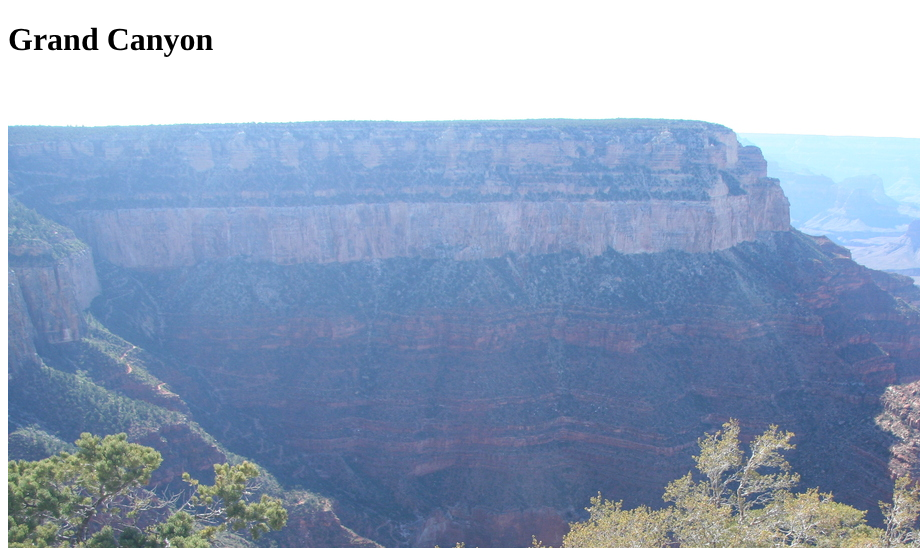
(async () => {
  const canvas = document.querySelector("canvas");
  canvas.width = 920;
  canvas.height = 548;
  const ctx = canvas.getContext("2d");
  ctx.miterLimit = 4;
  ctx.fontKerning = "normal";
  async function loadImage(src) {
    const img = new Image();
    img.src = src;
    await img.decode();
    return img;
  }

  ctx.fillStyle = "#ffffff";
  ctx.fillRect(0, 0, 920, 548);
  ctx.drawImage(await loadImage("img/1.png"), 8, 115, 912, 433);
  ctx.font = "bold 32px Liberation Serif";
  ctx.fillStyle = "#000000";
  ctx.fillText("Grand Canyon", 8, 50);
})();
